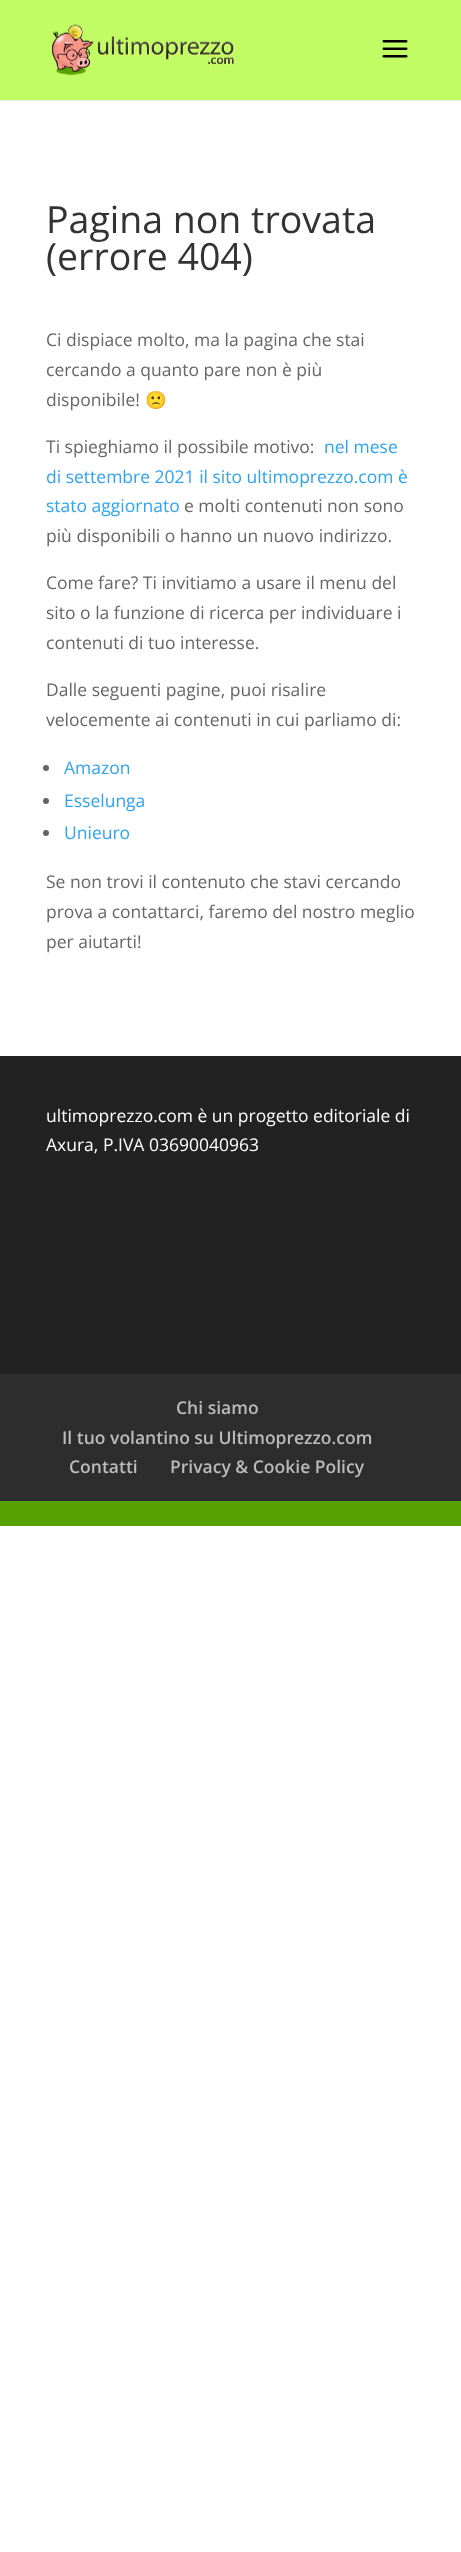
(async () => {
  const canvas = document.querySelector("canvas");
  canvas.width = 461;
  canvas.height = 2552;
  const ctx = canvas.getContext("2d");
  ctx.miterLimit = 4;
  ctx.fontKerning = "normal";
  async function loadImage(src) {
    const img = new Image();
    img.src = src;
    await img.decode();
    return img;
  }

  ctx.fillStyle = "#ffffff";
  ctx.fillRect(0, 0, 461, 2552);
  ctx.fillStyle = "#e6e6e6";
  ctx.fillRect(0, 100, 461, 1);
  ctx.fillStyle = "#c1fc64";
  ctx.fillRect(0, 0, 461, 100);
  ctx.drawImage(await loadImage("img/1.png"), 52, 24, 183, 51);
  ctx.drawImage(await loadImage("img/2.png"), 382, 40, 26, 18);
  ctx.fillStyle = "#666666";
  ctx.beginPath();
  ctx.arc(46, 768, 3, 0, Math.PI * 2);
  ctx.fill();
  ctx.beginPath();
  ctx.arc(46, 801, 3, 0, Math.PI * 2);
  ctx.fill();
  ctx.beginPath();
  ctx.arc(46, 833, 3, 0, Math.PI * 2);
  ctx.fill();
  for (const [x, y, w, h, color] of [
    [0, 1056, 461, 318, "#222222"],
    [0, 1374, 461, 127, "#2d2d2d"],
    [0, 1501, 461, 25, "#57a200"],
  ]) {
    ctx.fillStyle = color;
    ctx.fillRect(x, y, w, h);
  }
  ctx.font = "37.5px Open Sans";
  ctx.fillStyle = "#333333";
  ctx.fillText("Pagina non trovata", 46, 233);
  ctx.fillText("(errore 404)", 46, 270);
  ctx.font = "17.5px Open Sans";
  ctx.fillStyle = "#666666";
  for (const [text, x, y] of [
    ["Ci dispiace molto, ma la pagina che stai", 46, 346],
    ["cercando a quanto pare non è più", 46, 376],
    ["disponibile!", 46, 406],
  ]) {
    ctx.fillText(text, x, y);
  }
  ctx.font = "17.5px Noto Color Emoji";
  ctx.fillText("🙁", 145, 406);
  ctx.font = "17.5px Open Sans";
  ctx.fillText("Ti spieghiamo il possibile motivo:", 46, 453);
  ctx.fillStyle = "#2ea3f2";
  for (const [text, x, y] of [
    ["nel mese", 324, 453],
    ["di settembre 2021 il sito ultimoprezzo.com è", 46, 483],
    ["stato aggiornato", 46, 512],
  ]) {
    ctx.fillText(text, x, y);
  }
  ctx.fillStyle = "#666666";
  for (const [text, x, y] of [
    ["e molti contenuti non sono", 184, 512],
    ["più disponibili o hanno un nuovo indirizzo.", 46, 542],
    ["Come fare? Ti invitiamo a usare il menu del", 46, 589],
    ["sito o la funzione di ricerca per individuare i", 46, 619],
    ["contenuti di tuo interesse.", 46, 649],
    ["Dalle seguenti pagine, puoi risalire", 46, 696],
    ["velocemente ai contenuti in cui parliamo di:", 46, 726],
  ]) {
    ctx.fillText(text, x, y);
  }
  ctx.fillStyle = "#2ea3f2";
  for (const [text, x, y] of [
    ["Amazon", 64, 774],
    ["Esselunga", 64, 807],
    ["Unieuro", 64, 839],
  ]) {
    ctx.fillText(text, x, y);
  }
  ctx.fillStyle = "#666666";
  for (const [text, x, y] of [
    ["Se non trovi il contenuto che stavi cercando", 46, 888],
    ["prova a contattarci, faremo del nostro meglio", 46, 918],
    ["per aiutarti!", 46, 948],
  ]) {
    ctx.fillText(text, x, y);
  }
  ctx.fillStyle = "#ffffff";
  ctx.fillText("ultimoprezzo.com è un progetto editoriale di", 46, 1122);
  ctx.fillText("Axura, P.IVA 03690040963", 46, 1151);
  ctx.font = "600 17.5px Open Sans";
  ctx.fillStyle = "#bbbbbb";
  for (const [text, x, y] of [
    ["Chi siamo", 176, 1414],
    ["Il tuo volantino su Ultimoprezzo.com", 62, 1444],
    ["Contatti", 69, 1473],
    ["Privacy & Cookie Policy", 170, 1473],
  ]) {
    ctx.fillText(text, x, y);
  }
})();
